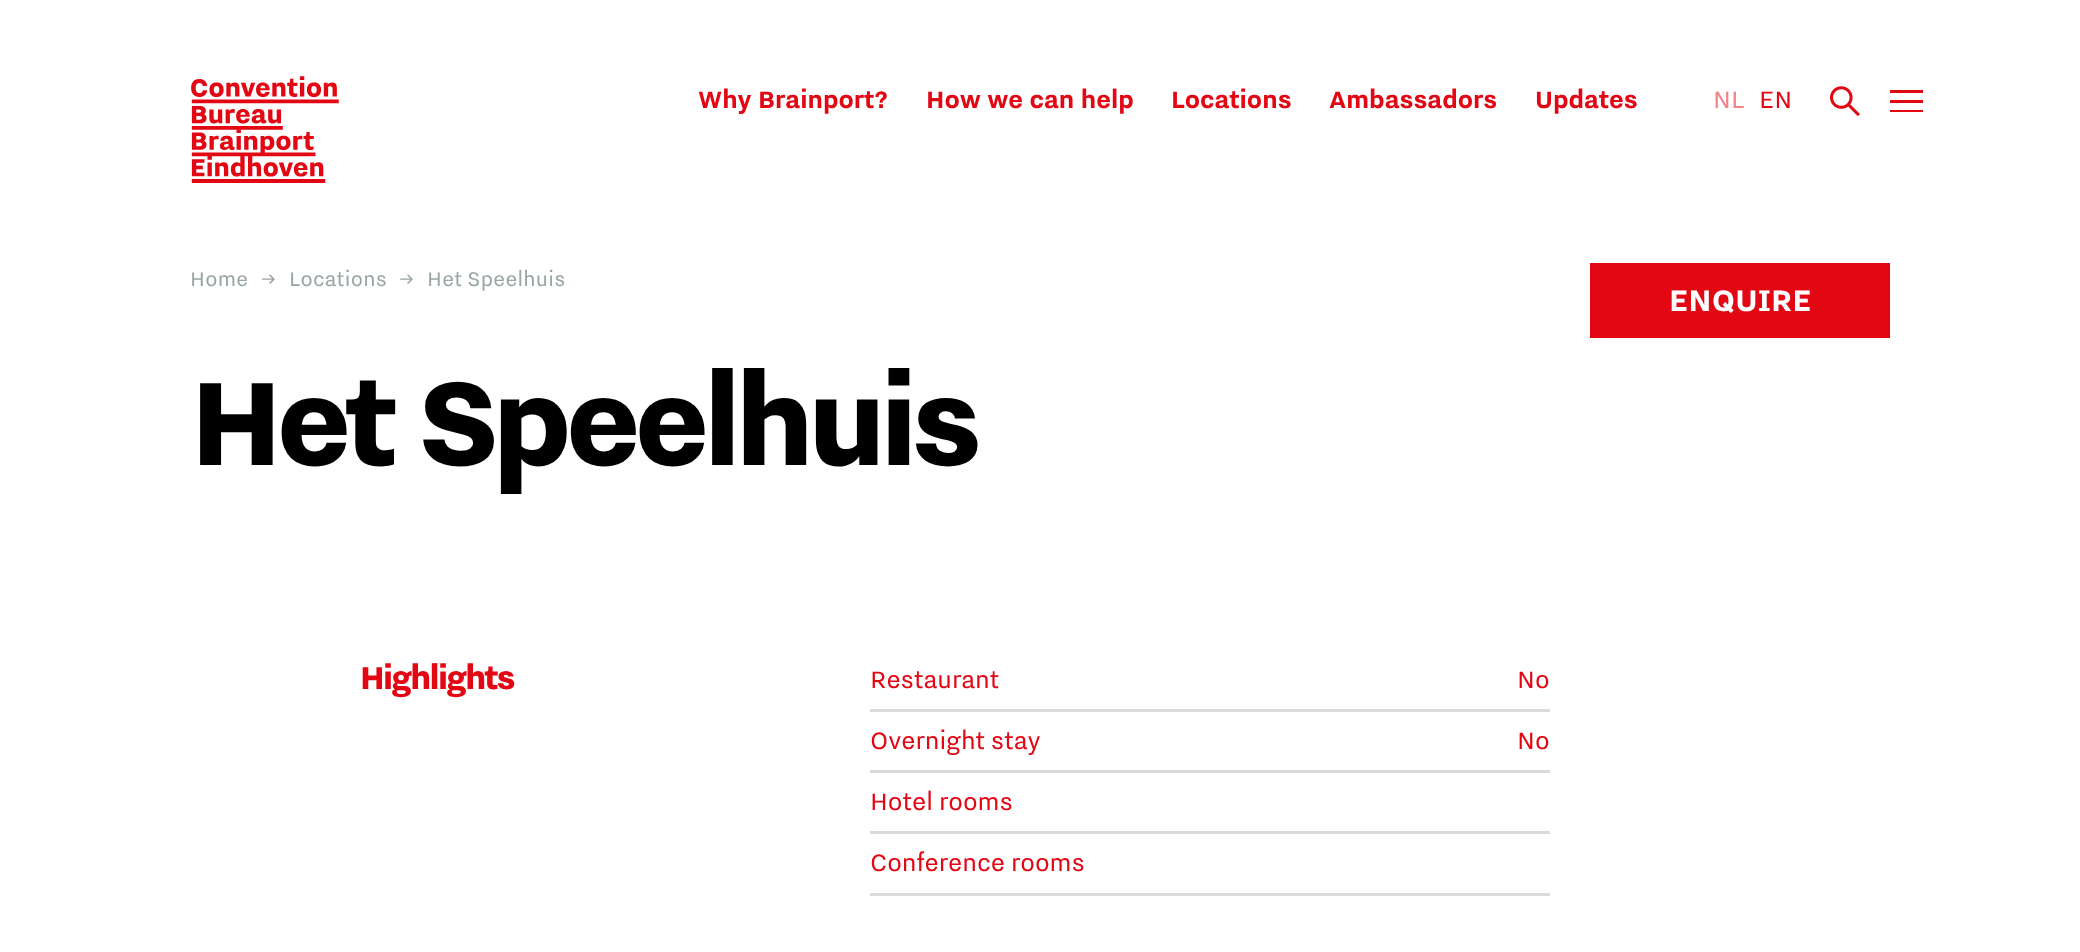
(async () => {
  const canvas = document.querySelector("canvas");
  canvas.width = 2080;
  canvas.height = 952;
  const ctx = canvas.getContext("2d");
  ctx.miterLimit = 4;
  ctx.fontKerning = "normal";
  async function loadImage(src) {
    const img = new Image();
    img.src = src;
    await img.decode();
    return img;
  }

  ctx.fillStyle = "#ffffff";
  ctx.fillRect(0, 0, 2080, 952);
  ctx.drawImage(await loadImage("img/1.png"), 191, 76, 148, 107);
  ctx.drawImage(await loadImage("img/2.png"), 1830, 86, 30, 30);
  for (const [x, y, w, h, color] of [
    [1890, 90, 33, 3, "#e30613"],
    [1890, 100, 33, 3, "#e30613"],
    [1890, 110, 33, 2, "#e30613"],
    [1590, 263, 300, 75, "#e30613"],
    [870, 709, 680, 3, "#d7dcd9"],
    [870, 770, 680, 3, "#d7dcd9"],
    [870, 831, 680, 3, "#d7dcd9"],
    [870, 893, 680, 3, "#d7dcd9"],
  ]) {
    ctx.fillStyle = color;
    ctx.fillRect(x, y, w, h);
  }
  ctx.font = "bold 30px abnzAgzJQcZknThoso";
  ctx.fillStyle = "#e30613";
  for (const [text, x, y] of [
    ["Why Brainport?", 698, 108],
    ["How we can help", 926, 108],
    ["Locations", 1171, 108],
    ["Ambassadors", 1329, 108],
    ["Updates", 1535, 108],
  ]) {
    ctx.fillText(text, x, y);
  }
  ctx.font = "30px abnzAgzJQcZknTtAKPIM";
  ctx.fillStyle = "#f18389";
  ctx.fillText("NL", 1713, 108);
  ctx.fillStyle = "#e30613";
  ctx.fillText("EN", 1759, 108);
  ctx.letterSpacing = "0.25px";
  ctx.font = "25px abnzAgzJQcZknTtAKPIM";
  ctx.fillStyle = "#9aa79f";
  for (const [text, x, y] of [
    ["Home", 190, 286],
    ["→", 261, 286],
    ["Locations", 289, 286],
    ["→", 399, 286],
    ["Het Speelhuis", 427, 286],
  ]) {
    ctx.fillText(text, x, y);
  }
  ctx.letterSpacing = "0px";
  ctx.font = "bold 37.5px abnzAgzJQcZknThoso";
  ctx.fillStyle = "#ffffff";
  ctx.fillText("ENQUIRE", 1669, 311);
  ctx.letterSpacing = "-6px";
  ctx.font = "800 150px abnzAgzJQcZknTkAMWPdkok";
  ctx.fillStyle = "#000000";
  ctx.fillText("Het Speelhuis", 190, 465);
  ctx.letterSpacing = "-1.6px";
  ctx.font = "800 40px abnzAgzJQcZknTkAMWPdkok";
  ctx.fillStyle = "#e30613";
  ctx.fillText("Highlights", 360, 689);
  ctx.letterSpacing = "0px";
  ctx.font = "30px abnzAgzJQcZknTtAKPIM";
  for (const [text, x, y] of [
    ["Restaurant", 870, 688],
    ["No", 1517, 688],
    ["Overnight stay", 870, 749],
    ["No", 1517, 749],
    ["Hotel rooms", 870, 810],
    ["Conference rooms", 870, 871],
  ]) {
    ctx.fillText(text, x, y);
  }
})();
